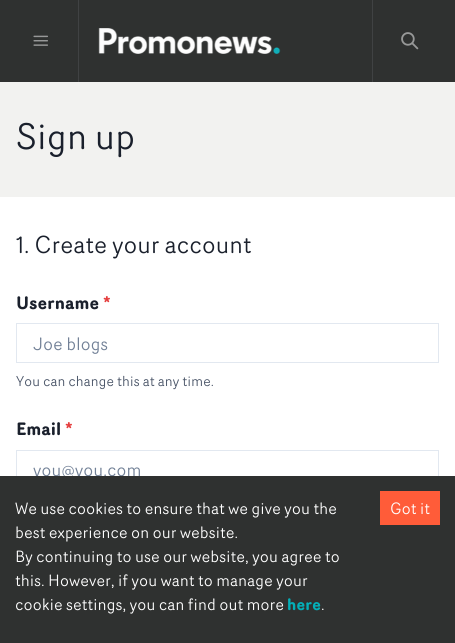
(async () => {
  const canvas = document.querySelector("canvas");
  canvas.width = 455;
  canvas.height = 643;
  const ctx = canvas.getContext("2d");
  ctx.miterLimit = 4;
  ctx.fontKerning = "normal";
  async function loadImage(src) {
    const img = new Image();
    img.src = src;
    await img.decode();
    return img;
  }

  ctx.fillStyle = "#ffffff";
  ctx.fillRect(0, 0, 455, 643);
  ctx.fillStyle = "#2f3130";
  ctx.fillRect(0, 0, 455, 82);
  ctx.fillStyle = "#404243";
  ctx.fillRect(78, 0, 1, 82);
  ctx.drawImage(await loadImage("img/1.png"), 33, 35, 15, 11);
  ctx.drawImage(await loadImage("img/2.png"), 98, 28, 183, 26);
  ctx.fillRect(372, 0, 1, 82);
  ctx.drawImage(await loadImage("img/3.png"), 401, 32, 18, 18);
  ctx.fillStyle = "#f2f2f0";
  ctx.fillRect(0, 82, 455, 115);
  ctx.drawImage(await loadImage("img/4.png"), 17, 122, 116, 36);
  ctx.drawImage(await loadImage("img/5.png"), 16, 236, 6, 18);
  ctx.drawImage(await loadImage("img/6.png"), 25, 235, 226, 24);
  ctx.drawImage(await loadImage("img/7.png"), 17, 296, 82, 14);
  ctx.drawImage(await loadImage("img/8.png"), 103, 296, 7, 7);
  ctx.strokeStyle = "#e2e8f0";
  ctx.strokeRect(16.5, 323.5, 422, 39);
  ctx.drawImage(await loadImage("img/9.png"), 33, 337, 75, 17);
  ctx.drawImage(await loadImage("img/10.png"), 16, 375, 197, 15);
  ctx.drawImage(await loadImage("img/11.png"), 17, 422, 43, 14);
  ctx.drawImage(await loadImage("img/8.png"), 65, 422, 7, 7);
  ctx.strokeRect(16.5, 450.5, 422, 39);
  ctx.drawImage(await loadImage("img/12.png"), 33, 465, 107, 11);
  ctx.fillStyle = "#2f3130";
  ctx.fillRect(0, 476, 455, 167);
  ctx.drawImage(await loadImage("img/13.png"), 15, 502, 321, 16);
  ctx.drawImage(await loadImage("img/14.png"), 16, 526, 221, 16);
  ctx.drawImage(await loadImage("img/15.png"), 16, 550, 323, 16);
  ctx.drawImage(await loadImage("img/16.png"), 15, 574, 293, 16);
  ctx.drawImage(await loadImage("img/17.png"), 16, 598, 268, 16);
  ctx.drawImage(await loadImage("img/18.png"), 288, 598, 33, 13);
  ctx.drawImage(await loadImage("img/19.png"), 322, 608, 2, 2);
  ctx.fillStyle = "#ff5c39";
  ctx.fillRect(380, 491, 60, 34);
  ctx.drawImage(await loadImage("img/20.png"), 391, 502, 39, 13);
})();
